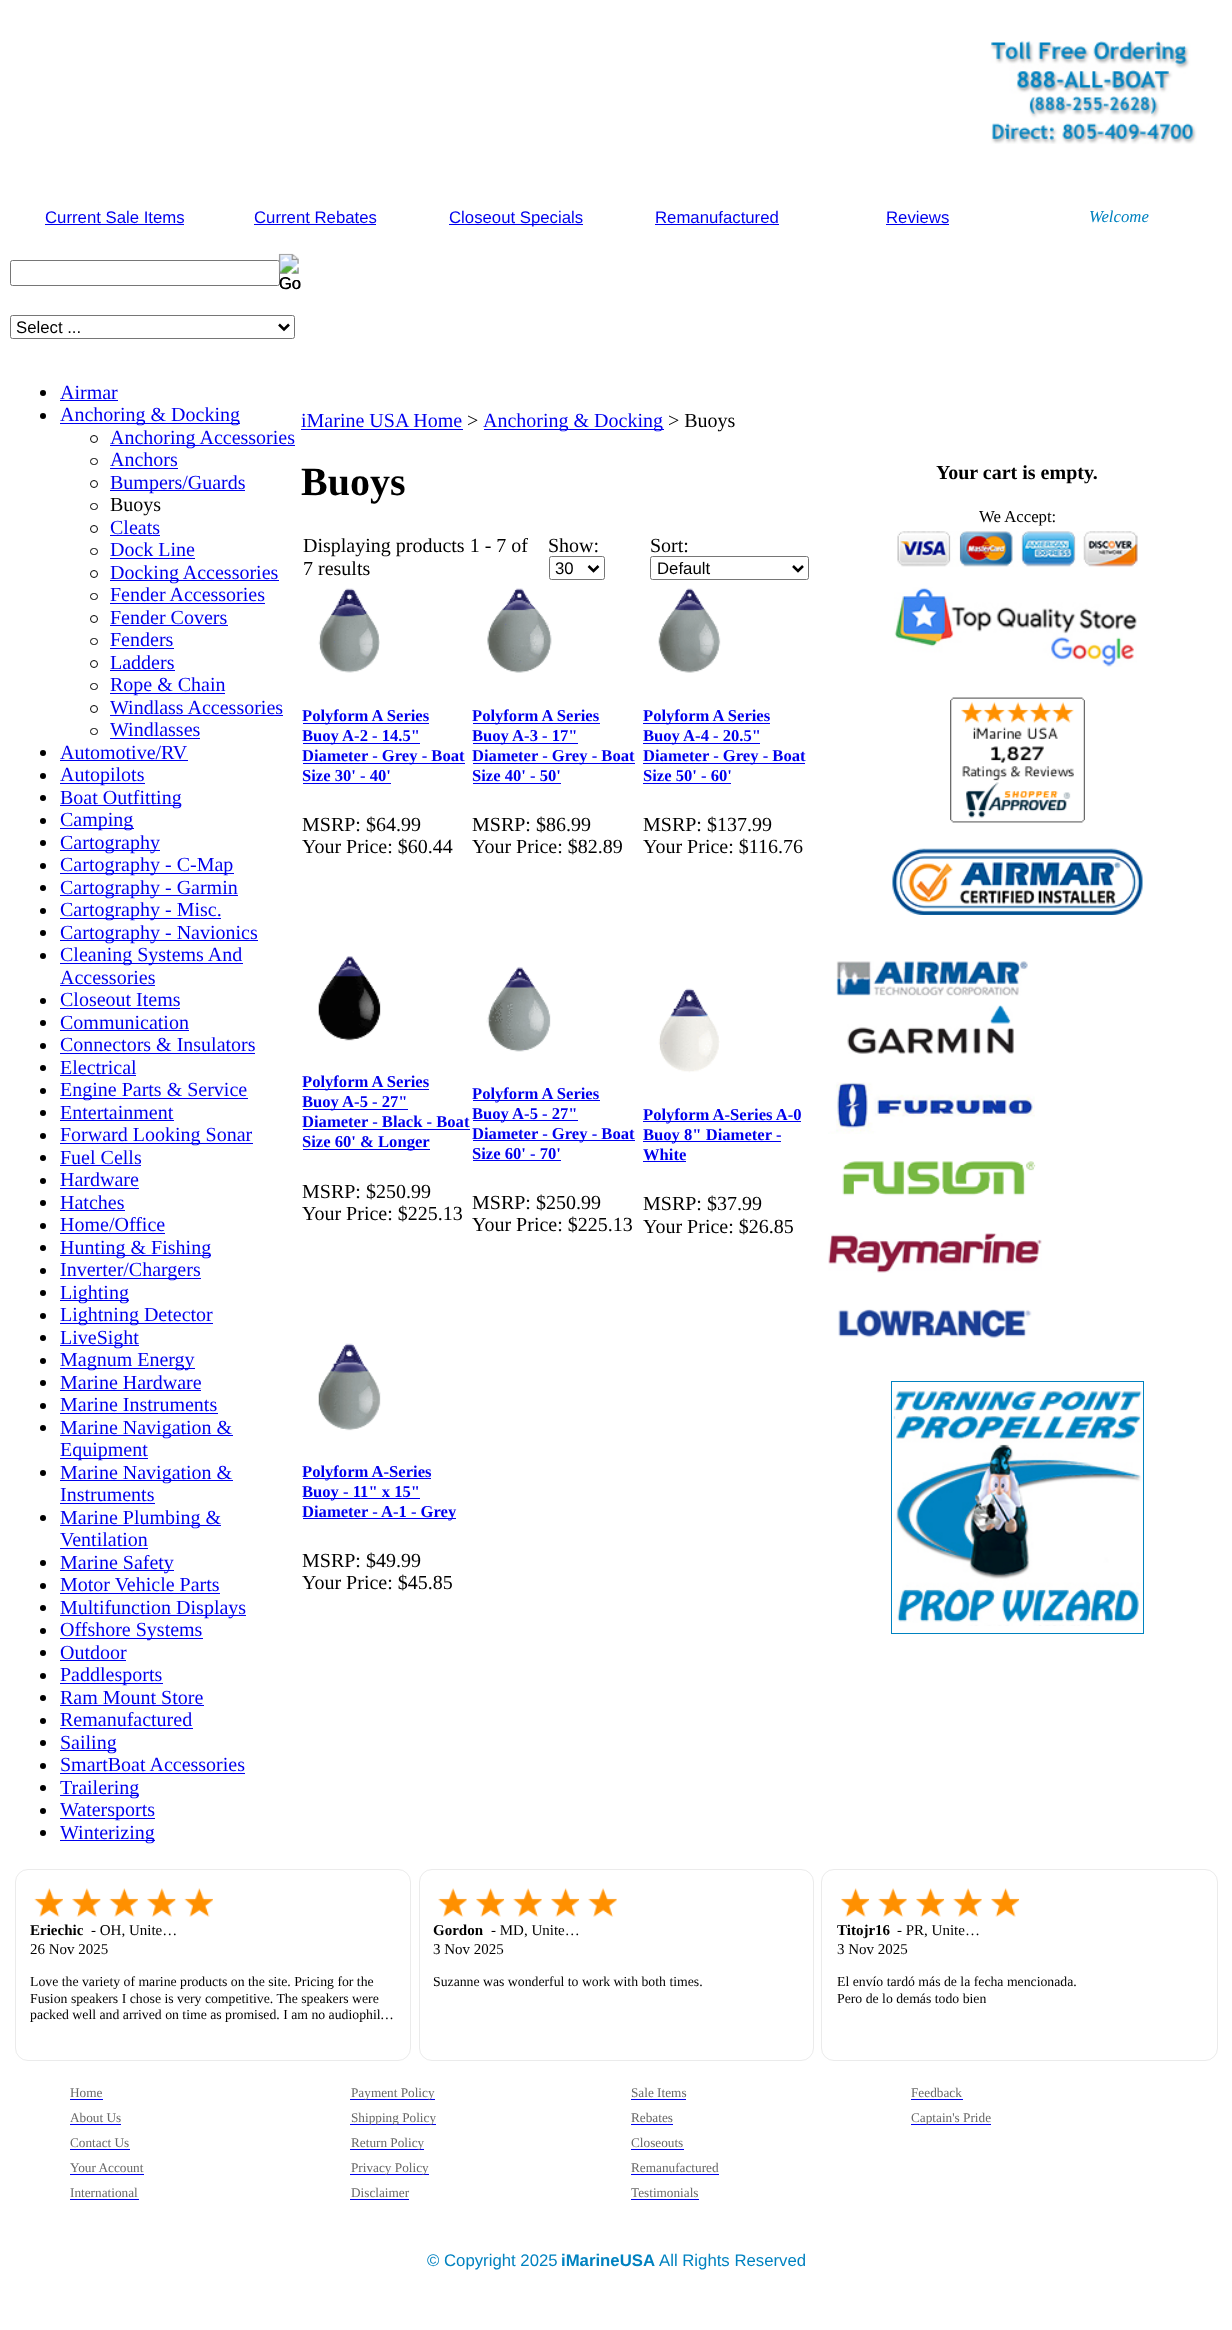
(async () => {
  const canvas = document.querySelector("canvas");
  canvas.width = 1232;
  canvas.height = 2330;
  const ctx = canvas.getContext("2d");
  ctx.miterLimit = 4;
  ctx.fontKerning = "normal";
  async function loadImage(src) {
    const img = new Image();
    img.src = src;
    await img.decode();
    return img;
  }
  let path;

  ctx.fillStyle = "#ffffff";
  ctx.fillRect(0, 0, 1232, 2330);
  ctx.drawImage(await loadImage("img/1.png"), 990, 40, 207, 104);
  for (const [x, y, w, h, color] of [
    [45, 224, 139, 1, "#0000ee"],
    [254, 224, 122, 1, "#0000ee"],
    [449, 224, 134, 1, "#0000ee"],
    [655, 224, 124, 1, "#0000ee"],
    [886, 224, 63, 1, "#0000ee"],
  ]) {
    ctx.fillStyle = color;
    ctx.fillRect(x, y, w, h);
  }
  ctx.beginPath();
  ctx.roundRect(10.5, 260.5, 269, 25, 2);
  ctx.strokeStyle = "#767676";
  ctx.stroke();
  ctx.drawImage(await loadImage("img/2.png"), 278, 253, 22, 36);
  ctx.beginPath();
  ctx.roundRect(10.5, 315.5, 284, 23, 2);
  ctx.stroke();
  path = new Path2D("M279 324.5L284 329.5L289 324.5");
  ctx.strokeStyle = "#000000";
  ctx.lineWidth = 2.5;
  ctx.stroke(path);
  ctx.fillStyle = "#000000";
  ctx.beginPath();
  ctx.arc(43, 393, 3, 0, Math.PI * 2);
  ctx.fill();
  ctx.fillStyle = "#0000ee";
  ctx.fillRect(60, 400, 58, 1);
  ctx.fillStyle = "#000000";
  ctx.beginPath();
  ctx.arc(43, 416, 3, 0, Math.PI * 2);
  ctx.fill();
  ctx.fillStyle = "#0000ee";
  ctx.fillRect(60, 423, 180, 1);
  ctx.beginPath();
  ctx.arc(94, 439, 3.5, 0, Math.PI * 2);
  ctx.lineWidth = 1;
  ctx.stroke();
  ctx.fillRect(110, 445, 185, 1);
  ctx.beginPath();
  ctx.roundRect(90.5, 458.5, 7, 6, 3);
  ctx.stroke();
  ctx.fillRect(110, 468, 68, 1);
  ctx.beginPath();
  ctx.arc(94, 484, 3.5, 0, Math.PI * 2);
  ctx.stroke();
  ctx.fillRect(110, 490, 135, 1);
  ctx.beginPath();
  ctx.roundRect(90.5, 503.5, 7, 6, 3);
  ctx.stroke();
  ctx.beginPath();
  ctx.arc(94, 529, 3.5, 0, Math.PI * 2);
  ctx.stroke();
  ctx.fillRect(110, 535, 50, 1);
  ctx.beginPath();
  ctx.roundRect(90.5, 548.5, 7, 6, 3);
  ctx.stroke();
  ctx.fillRect(110, 558, 85, 1);
  ctx.beginPath();
  ctx.arc(94, 574, 3.5, 0, Math.PI * 2);
  ctx.stroke();
  ctx.fillRect(110, 580, 169, 1);
  ctx.beginPath();
  ctx.roundRect(90.5, 593.5, 7, 6, 3);
  ctx.stroke();
  ctx.fillRect(110, 603, 155, 1);
  ctx.beginPath();
  ctx.arc(94, 619, 3.5, 0, Math.PI * 2);
  ctx.stroke();
  ctx.fillRect(110, 625, 118, 1);
  ctx.beginPath();
  ctx.roundRect(90.5, 638.5, 7, 6, 3);
  ctx.stroke();
  ctx.fillRect(110, 648, 64, 1);
  ctx.beginPath();
  ctx.arc(94, 664, 3.5, 0, Math.PI * 2);
  ctx.stroke();
  ctx.fillRect(110, 670, 65, 1);
  ctx.beginPath();
  ctx.roundRect(90.5, 683.5, 7, 6, 3);
  ctx.stroke();
  ctx.fillRect(110, 693, 115, 1);
  ctx.beginPath();
  ctx.arc(94, 709, 3.5, 0, Math.PI * 2);
  ctx.stroke();
  ctx.fillRect(110, 715, 173, 1);
  ctx.beginPath();
  ctx.roundRect(90.5, 728.5, 7, 6, 3);
  ctx.stroke();
  ctx.fillRect(110, 738, 90, 1);
  ctx.fillStyle = "#000000";
  ctx.beginPath();
  ctx.arc(43, 753, 3, 0, Math.PI * 2);
  ctx.fill();
  ctx.fillStyle = "#0000ee";
  ctx.fillRect(60, 760, 128, 1);
  ctx.fillStyle = "#000000";
  ctx.beginPath();
  ctx.arc(43, 776, 3, 0, Math.PI * 2);
  ctx.fill();
  ctx.fillStyle = "#0000ee";
  ctx.fillRect(60, 783, 85, 1);
  ctx.fillStyle = "#000000";
  ctx.beginPath();
  ctx.arc(43, 798, 3, 0, Math.PI * 2);
  ctx.fill();
  ctx.fillStyle = "#0000ee";
  ctx.fillRect(60, 805, 121, 1);
  ctx.fillStyle = "#000000";
  ctx.beginPath();
  ctx.arc(43, 821, 3, 0, Math.PI * 2);
  ctx.fill();
  ctx.fillStyle = "#0000ee";
  ctx.fillRect(60, 828, 74, 1);
  ctx.fillStyle = "#000000";
  ctx.beginPath();
  ctx.arc(43, 843, 3, 0, Math.PI * 2);
  ctx.fill();
  ctx.fillStyle = "#0000ee";
  ctx.fillRect(60, 850, 100, 1);
  ctx.fillStyle = "#000000";
  ctx.beginPath();
  ctx.arc(43, 866, 3, 0, Math.PI * 2);
  ctx.fill();
  ctx.fillStyle = "#0000ee";
  ctx.fillRect(60, 873, 174, 1);
  ctx.fillStyle = "#000000";
  ctx.beginPath();
  ctx.arc(43, 888, 3, 0, Math.PI * 2);
  ctx.fill();
  ctx.fillStyle = "#0000ee";
  ctx.fillRect(60, 895, 178, 1);
  ctx.fillStyle = "#000000";
  ctx.beginPath();
  ctx.arc(43, 911, 3, 0, Math.PI * 2);
  ctx.fill();
  ctx.fillStyle = "#0000ee";
  ctx.fillRect(60, 918, 161, 1);
  ctx.fillStyle = "#000000";
  ctx.beginPath();
  ctx.arc(43, 933, 3, 0, Math.PI * 2);
  ctx.fill();
  ctx.fillStyle = "#0000ee";
  ctx.fillRect(60, 940, 198, 1);
  ctx.fillStyle = "#000000";
  ctx.beginPath();
  ctx.arc(43, 956, 3, 0, Math.PI * 2);
  ctx.fill();
  ctx.fillStyle = "#0000ee";
  ctx.fillRect(60, 963, 183, 1);
  ctx.fillRect(60, 985, 95, 1);
  ctx.fillStyle = "#000000";
  ctx.beginPath();
  ctx.arc(43, 1001, 3, 0, Math.PI * 2);
  ctx.fill();
  ctx.fillStyle = "#0000ee";
  ctx.fillRect(60, 1008, 120, 1);
  ctx.fillStyle = "#000000";
  ctx.beginPath();
  ctx.arc(43, 1023, 3, 0, Math.PI * 2);
  ctx.fill();
  ctx.fillStyle = "#0000ee";
  ctx.fillRect(60, 1030, 129, 1);
  ctx.fillStyle = "#000000";
  ctx.beginPath();
  ctx.arc(43, 1046, 3, 0, Math.PI * 2);
  ctx.fill();
  ctx.fillStyle = "#0000ee";
  ctx.fillRect(60, 1053, 195, 1);
  ctx.fillStyle = "#000000";
  ctx.beginPath();
  ctx.arc(43, 1068, 3, 0, Math.PI * 2);
  ctx.fill();
  ctx.fillStyle = "#0000ee";
  ctx.fillRect(60, 1075, 76, 1);
  ctx.fillStyle = "#000000";
  ctx.beginPath();
  ctx.arc(43, 1091, 3, 0, Math.PI * 2);
  ctx.fill();
  ctx.fillStyle = "#0000ee";
  ctx.fillRect(60, 1098, 188, 1);
  ctx.fillStyle = "#000000";
  ctx.beginPath();
  ctx.arc(43, 1113, 3, 0, Math.PI * 2);
  ctx.fill();
  ctx.fillStyle = "#0000ee";
  ctx.fillRect(60, 1120, 114, 1);
  ctx.fillStyle = "#000000";
  ctx.beginPath();
  ctx.arc(43, 1136, 3, 0, Math.PI * 2);
  ctx.fill();
  ctx.fillStyle = "#0000ee";
  ctx.fillRect(60, 1143, 193, 1);
  ctx.fillStyle = "#000000";
  ctx.beginPath();
  ctx.arc(43, 1158, 3, 0, Math.PI * 2);
  ctx.fill();
  ctx.fillStyle = "#0000ee";
  ctx.fillRect(60, 1165, 81, 1);
  ctx.fillStyle = "#000000";
  ctx.beginPath();
  ctx.arc(43, 1181, 3, 0, Math.PI * 2);
  ctx.fill();
  ctx.fillStyle = "#0000ee";
  ctx.fillRect(60, 1188, 79, 1);
  ctx.fillStyle = "#000000";
  ctx.beginPath();
  ctx.arc(43, 1203, 3, 0, Math.PI * 2);
  ctx.fill();
  ctx.fillStyle = "#0000ee";
  ctx.fillRect(60, 1210, 65, 1);
  ctx.fillStyle = "#000000";
  ctx.beginPath();
  ctx.arc(43, 1226, 3, 0, Math.PI * 2);
  ctx.fill();
  ctx.fillStyle = "#0000ee";
  ctx.fillRect(60, 1233, 105, 1);
  ctx.fillStyle = "#000000";
  ctx.beginPath();
  ctx.arc(43, 1248, 3, 0, Math.PI * 2);
  ctx.fill();
  ctx.fillStyle = "#0000ee";
  ctx.fillRect(60, 1255, 151, 1);
  ctx.fillStyle = "#000000";
  ctx.beginPath();
  ctx.arc(43, 1271, 3, 0, Math.PI * 2);
  ctx.fill();
  ctx.fillStyle = "#0000ee";
  ctx.fillRect(60, 1278, 141, 1);
  ctx.fillStyle = "#000000";
  ctx.beginPath();
  ctx.arc(43, 1293, 3, 0, Math.PI * 2);
  ctx.fill();
  ctx.fillStyle = "#0000ee";
  ctx.fillRect(60, 1300, 69, 1);
  ctx.fillStyle = "#000000";
  ctx.beginPath();
  ctx.arc(43, 1316, 3, 0, Math.PI * 2);
  ctx.fill();
  ctx.fillStyle = "#0000ee";
  ctx.fillRect(60, 1323, 153, 1);
  ctx.fillStyle = "#000000";
  ctx.beginPath();
  ctx.arc(43, 1338, 3, 0, Math.PI * 2);
  ctx.fill();
  ctx.fillStyle = "#0000ee";
  ctx.fillRect(60, 1345, 79, 1);
  ctx.fillStyle = "#000000";
  ctx.beginPath();
  ctx.arc(43, 1361, 3, 0, Math.PI * 2);
  ctx.fill();
  ctx.fillStyle = "#0000ee";
  ctx.fillRect(60, 1368, 135, 1);
  ctx.fillStyle = "#000000";
  ctx.beginPath();
  ctx.arc(43, 1383, 3, 0, Math.PI * 2);
  ctx.fill();
  ctx.fillStyle = "#0000ee";
  ctx.fillRect(60, 1390, 141, 1);
  ctx.fillStyle = "#000000";
  ctx.beginPath();
  ctx.arc(43, 1406, 3, 0, Math.PI * 2);
  ctx.fill();
  ctx.fillStyle = "#0000ee";
  ctx.fillRect(60, 1413, 158, 1);
  ctx.fillStyle = "#000000";
  ctx.beginPath();
  ctx.arc(43, 1428, 3, 0, Math.PI * 2);
  ctx.fill();
  ctx.fillStyle = "#0000ee";
  ctx.fillRect(60, 1435, 173, 1);
  ctx.fillRect(60, 1458, 88, 1);
  ctx.fillStyle = "#000000";
  ctx.beginPath();
  ctx.arc(43, 1473, 3, 0, Math.PI * 2);
  ctx.fill();
  ctx.fillStyle = "#0000ee";
  ctx.fillRect(60, 1480, 173, 1);
  ctx.fillRect(60, 1503, 95, 1);
  ctx.fillStyle = "#000000";
  ctx.beginPath();
  ctx.arc(43, 1518, 3, 0, Math.PI * 2);
  ctx.fill();
  ctx.fillStyle = "#0000ee";
  ctx.fillRect(60, 1525, 161, 1);
  ctx.fillRect(60, 1548, 88, 1);
  ctx.fillStyle = "#000000";
  ctx.beginPath();
  ctx.arc(43, 1563, 3, 0, Math.PI * 2);
  ctx.fill();
  ctx.fillStyle = "#0000ee";
  ctx.fillRect(60, 1570, 114, 1);
  ctx.fillStyle = "#000000";
  ctx.beginPath();
  ctx.arc(43, 1586, 3, 0, Math.PI * 2);
  ctx.fill();
  ctx.fillStyle = "#0000ee";
  ctx.fillRect(60, 1593, 160, 1);
  ctx.fillStyle = "#000000";
  ctx.beginPath();
  ctx.arc(43, 1608, 3, 0, Math.PI * 2);
  ctx.fill();
  ctx.fillStyle = "#0000ee";
  ctx.fillRect(60, 1615, 186, 1);
  ctx.fillStyle = "#000000";
  ctx.beginPath();
  ctx.arc(43, 1631, 3, 0, Math.PI * 2);
  ctx.fill();
  ctx.fillStyle = "#0000ee";
  ctx.fillRect(60, 1638, 143, 1);
  ctx.fillStyle = "#000000";
  ctx.beginPath();
  ctx.arc(43, 1653, 3, 0, Math.PI * 2);
  ctx.fill();
  ctx.fillStyle = "#0000ee";
  ctx.fillRect(60, 1660, 66, 1);
  ctx.fillStyle = "#000000";
  ctx.beginPath();
  ctx.arc(43, 1676, 3, 0, Math.PI * 2);
  ctx.fill();
  ctx.fillStyle = "#0000ee";
  ctx.fillRect(60, 1683, 103, 1);
  ctx.fillStyle = "#000000";
  ctx.beginPath();
  ctx.arc(43, 1698, 3, 0, Math.PI * 2);
  ctx.fill();
  ctx.fillStyle = "#0000ee";
  ctx.fillRect(60, 1705, 144, 1);
  ctx.fillStyle = "#000000";
  ctx.beginPath();
  ctx.arc(43, 1721, 3, 0, Math.PI * 2);
  ctx.fill();
  ctx.fillStyle = "#0000ee";
  ctx.fillRect(60, 1728, 133, 1);
  ctx.fillStyle = "#000000";
  ctx.beginPath();
  ctx.arc(43, 1743, 3, 0, Math.PI * 2);
  ctx.fill();
  ctx.fillStyle = "#0000ee";
  ctx.fillRect(60, 1750, 56, 1);
  ctx.fillStyle = "#000000";
  ctx.beginPath();
  ctx.arc(43, 1766, 3, 0, Math.PI * 2);
  ctx.fill();
  ctx.fillStyle = "#0000ee";
  ctx.fillRect(60, 1773, 185, 1);
  ctx.fillStyle = "#000000";
  ctx.beginPath();
  ctx.arc(43, 1788, 3, 0, Math.PI * 2);
  ctx.fill();
  ctx.fillStyle = "#0000ee";
  ctx.fillRect(60, 1795, 79, 1);
  ctx.fillStyle = "#000000";
  ctx.beginPath();
  ctx.arc(43, 1811, 3, 0, Math.PI * 2);
  ctx.fill();
  ctx.fillStyle = "#0000ee";
  ctx.fillRect(60, 1818, 95, 1);
  ctx.fillStyle = "#000000";
  ctx.beginPath();
  ctx.arc(43, 1833, 3, 0, Math.PI * 2);
  ctx.fill();
  for (const [x, y, w, h, color] of [
    [60, 1840, 95, 1, "#0000ee"],
    [301, 429, 162, 1, "#0000ee"],
    [484, 429, 180, 1, "#0000ee"],
  ]) {
    ctx.fillStyle = color;
    ctx.fillRect(x, y, w, h);
  }
  ctx.beginPath();
  ctx.roundRect(549.5, 556.5, 55, 23, 2);
  ctx.strokeStyle = "#767676";
  ctx.stroke();
  path = new Path2D("M588.5 566L593.5 571L598.5 566");
  ctx.strokeStyle = "#000000";
  ctx.lineWidth = 2.5;
  ctx.stroke(path);
  ctx.beginPath();
  ctx.roundRect(650.5, 556.5, 158, 23, 2);
  ctx.strokeStyle = "#767676";
  ctx.lineWidth = 1;
  ctx.stroke();
  path = new Path2D("M793 566L798 571L803 566");
  ctx.strokeStyle = "#000000";
  ctx.lineWidth = 2.5;
  ctx.stroke(path);
  ctx.drawImage(await loadImage("img/3.png"), 318, 588, 62, 85);
  for (const [x, y, w, h, color] of [
    [303, 723, 126, 1, "#0000ee"],
    [303, 743, 117, 1, "#0000ee"],
    [303, 763, 162, 1, "#0000ee"],
    [303, 783, 88, 1, "#0000ee"],
  ]) {
    ctx.fillStyle = color;
    ctx.fillRect(x, y, w, h);
  }
  ctx.drawImage(await loadImage("img/4.png"), 487, 588, 65, 85);
  for (const [x, y, w, h, color] of [
    [473, 723, 127, 1, "#0000ee"],
    [473, 743, 105, 1, "#0000ee"],
    [473, 763, 162, 1, "#0000ee"],
    [473, 783, 88, 1, "#0000ee"],
  ]) {
    ctx.fillStyle = color;
    ctx.fillRect(x, y, w, h);
  }
  ctx.drawImage(await loadImage("img/5.png"), 658, 588, 63, 85);
  for (const [x, y, w, h, color] of [
    [643, 723, 127, 1, "#0000ee"],
    [643, 743, 117, 1, "#0000ee"],
    [643, 763, 162, 1, "#0000ee"],
    [643, 783, 88, 1, "#0000ee"],
  ]) {
    ctx.fillStyle = color;
    ctx.fillRect(x, y, w, h);
  }
  ctx.drawImage(await loadImage("img/6.png"), 318, 956, 63, 85);
  for (const [x, y, w, h, color] of [
    [303, 1089, 126, 1, "#0000ee"],
    [303, 1109, 105, 1, "#0000ee"],
    [303, 1129, 167, 1, "#0000ee"],
    [303, 1149, 127, 1, "#0000ee"],
  ]) {
    ctx.fillStyle = color;
    ctx.fillRect(x, y, w, h);
  }
  ctx.drawImage(await loadImage("img/7.png"), 486, 966, 65, 86);
  for (const [x, y, w, h, color] of [
    [473, 1100, 127, 1, "#0000ee"],
    [473, 1120, 105, 1, "#0000ee"],
    [473, 1140, 162, 1, "#0000ee"],
    [473, 1160, 88, 1, "#0000ee"],
  ]) {
    ctx.fillStyle = color;
    ctx.fillRect(x, y, w, h);
  }
  ctx.drawImage(await loadImage("img/8.png"), 658, 988, 62, 85);
  for (const [x, y, w, h, color] of [
    [643, 1121, 158, 1, "#0000ee"],
    [643, 1141, 138, 1, "#0000ee"],
    [643, 1161, 43, 1, "#0000ee"],
  ]) {
    ctx.fillStyle = color;
    ctx.fillRect(x, y, w, h);
  }
  ctx.drawImage(await loadImage("img/9.png"), 318, 1343, 63, 88);
  for (const [x, y, w, h, color] of [
    [303, 1478, 128, 1, "#0000ee"],
    [303, 1498, 117, 1, "#0000ee"],
    [303, 1518, 153, 1, "#0000ee"],
  ]) {
    ctx.fillStyle = color;
    ctx.fillRect(x, y, w, h);
  }
  ctx.drawImage(await loadImage("img/10.png"), 897, 531, 241, 36);
  ctx.drawImage(await loadImage("img/11.png"), 894, 587, 243, 80);
  ctx.drawImage(await loadImage("img/12.png"), 950, 697, 135, 126);
  ctx.drawImage(await loadImage("img/13.png"), 892, 848, 251, 67);
  ctx.drawImage(await loadImage("img/14.png"), 836, 961, 192, 35);
  ctx.drawImage(await loadImage("img/15.png"), 847, 1005, 167, 49);
  ctx.drawImage(await loadImage("img/16.png"), 828, 1082, 207, 52);
  ctx.drawImage(await loadImage("img/17.png"), 842, 1161, 194, 35);
  ctx.drawImage(await loadImage("img/18.png"), 828, 1233, 214, 40);
  ctx.drawImage(await loadImage("img/19.png"), 838, 1309, 194, 29);
  ctx.strokeStyle = "#0082c0";
  ctx.lineWidth = 1;
  ctx.strokeRect(891.5, 1381.5, 252, 252);
  ctx.drawImage(await loadImage("img/20.png"), 893, 1391, 250, 235);
  ctx.beginPath();
  ctx.roundRect(15.5, 1869.5, 395, 191, 12.5);
  ctx.strokeStyle = "#ebebeb";
  ctx.stroke();
  ctx.drawImage(await loadImage("img/21.png"), 34, 1888, 29, 29);
  ctx.drawImage(await loadImage("img/22.png"), 72, 1888, 29, 29);
  ctx.drawImage(await loadImage("img/21.png"), 109, 1888, 29, 29);
  ctx.drawImage(await loadImage("img/22.png"), 147, 1888, 29, 29);
  ctx.drawImage(await loadImage("img/21.png"), 184, 1888, 29, 29);
  ctx.beginPath();
  ctx.roundRect(419.5, 1869.5, 394, 191, 12.5);
  ctx.stroke();
  ctx.drawImage(await loadImage("img/23.png"), 438, 1888, 29, 29);
  ctx.drawImage(await loadImage("img/24.png"), 476, 1888, 29, 29);
  ctx.drawImage(await loadImage("img/23.png"), 513, 1888, 29, 29);
  ctx.drawImage(await loadImage("img/24.png"), 551, 1888, 29, 29);
  ctx.drawImage(await loadImage("img/25.png"), 588, 1888, 29, 29);
  ctx.beginPath();
  ctx.roundRect(821.5, 1869.5, 396, 191, 12.5);
  ctx.stroke();
  ctx.drawImage(await loadImage("img/24.png"), 841, 1888, 29, 29);
  ctx.drawImage(await loadImage("img/25.png"), 878, 1888, 29, 29);
  ctx.drawImage(await loadImage("img/24.png"), 916, 1888, 29, 29);
  ctx.drawImage(await loadImage("img/25.png"), 953, 1888, 29, 29);
  ctx.drawImage(await loadImage("img/24.png"), 991, 1888, 29, 29);
  for (const [x, y, w, h, color] of [
    [70, 2099, 33, 1, "#0000ee"],
    [350, 2099, 85, 1, "#0000ee"],
    [631, 2099, 55, 1, "#0000ee"],
    [911, 2099, 52, 1, "#0000ee"],
    [70, 2124, 51, 1, "#0000ee"],
    [350, 2124, 86, 1, "#0000ee"],
    [631, 2124, 42, 1, "#0000ee"],
    [911, 2124, 80, 1, "#0000ee"],
    [70, 2149, 60, 1, "#0000ee"],
    [350, 2149, 74, 1, "#0000ee"],
    [631, 2149, 53, 1, "#0000ee"],
    [70, 2174, 74, 1, "#0000ee"],
    [350, 2174, 79, 1, "#0000ee"],
    [631, 2174, 88, 1, "#0000ee"],
    [70, 2199, 69, 1, "#0000ee"],
    [350, 2199, 59, 1, "#0000ee"],
    [631, 2199, 68, 1, "#0000ee"],
  ]) {
    ctx.fillStyle = color;
    ctx.fillRect(x, y, w, h);
  }
  ctx.font = "16.75px Liberation Sans";
  for (const [text, x, y] of [
    ["Current Sale Items", 45, 223],
    ["Current Rebates", 254, 223],
    ["Closeout Specials", 449, 223],
    ["Remanufactured", 655, 223],
    ["Reviews", 886, 223],
  ]) {
    ctx.fillText(text, x, y);
  }
  ctx.font = "italic 16.75px Liberation Serif";
  ctx.fillStyle = "#0082c0";
  ctx.fillText("Welcome", 1089, 222);
  ctx.font = "16.75px Liberation Sans";
  ctx.fillStyle = "#000000";
  ctx.fillText("Go", 279, 289);
  ctx.fillText("Select ...", 16, 333);
  ctx.font = "20px Liberation Serif";
  ctx.fillStyle = "#0000ee";
  for (const [text, x, y] of [
    ["Airmar", 60, 399],
    ["Anchoring & Docking", 60, 421],
    ["Anchoring Accessories", 110, 444],
    ["Anchors", 110, 466],
    ["Bumpers/Guards", 110, 489],
  ]) {
    ctx.fillText(text, x, y);
  }
  ctx.fillStyle = "#000000";
  ctx.fillText("Buoys", 110, 511);
  ctx.fillStyle = "#0000ee";
  for (const [text, x, y] of [
    ["Cleats", 110, 534],
    ["Dock Line", 110, 556],
    ["Docking Accessories", 110, 579],
    ["Fender Accessories", 110, 601],
    ["Fender Covers", 110, 624],
    ["Fenders", 110, 646],
    ["Ladders", 110, 669],
    ["Rope & Chain", 110, 691],
    ["Windlass Accessories", 110, 714],
    ["Windlasses", 110, 736],
    ["Automotive/RV", 60, 759],
    ["Autopilots", 60, 781],
    ["Boat Outfitting", 60, 804],
    ["Camping", 60, 826],
    ["Cartography", 60, 849],
    ["Cartography - C-Map", 60, 871],
    ["Cartography - Garmin", 60, 894],
    ["Cartography - Misc.", 60, 916],
    ["Cartography - Navionics", 60, 939],
    ["Cleaning Systems And", 60, 961],
    ["Accessories", 60, 984],
    ["Closeout Items", 60, 1006],
    ["Communication", 60, 1029],
    ["Connectors & Insulators", 60, 1051],
    ["Electrical", 60, 1074],
    ["Engine Parts & Service", 60, 1096],
    ["Entertainment", 60, 1119],
    ["Forward Looking Sonar", 60, 1141],
    ["Fuel Cells", 60, 1164],
    ["Hardware", 60, 1186],
    ["Hatches", 60, 1209],
    ["Home/Office", 60, 1231],
    ["Hunting & Fishing", 60, 1254],
    ["Inverter/Chargers", 60, 1276],
    ["Lighting", 60, 1299],
    ["Lightning Detector", 60, 1321],
    ["LiveSight", 60, 1344],
    ["Magnum Energy", 60, 1366],
    ["Marine Hardware", 60, 1389],
    ["Marine Instruments", 60, 1411],
    ["Marine Navigation &", 60, 1434],
    ["Equipment", 60, 1456],
    ["Marine Navigation &", 60, 1479],
    ["Instruments", 60, 1501],
    ["Marine Plumbing &", 60, 1524],
    ["Ventilation", 60, 1546],
    ["Marine Safety", 60, 1569],
    ["Motor Vehicle Parts", 60, 1591],
    ["Multifunction Displays", 60, 1614],
    ["Offshore Systems", 60, 1636],
    ["Outdoor", 60, 1659],
    ["Paddlesports", 60, 1681],
    ["Ram Mount Store", 60, 1704],
    ["Remanufactured", 60, 1726],
    ["Sailing", 60, 1749],
    ["SmartBoat Accessories", 60, 1771],
    ["Trailering", 60, 1794],
    ["Watersports", 60, 1816],
    ["Winterizing", 60, 1839],
    ["iMarine USA Home", 301, 427],
  ]) {
    ctx.fillText(text, x, y);
  }
  ctx.fillStyle = "#000000";
  ctx.fillText(">", 467, 427);
  ctx.fillStyle = "#0000ee";
  ctx.fillText("Anchoring & Docking", 483, 427);
  ctx.fillStyle = "#000000";
  ctx.fillText("> Buoys", 668, 427);
  ctx.font = "bold 40px Liberation Serif";
  ctx.fillText("Buoys", 301, 495);
  ctx.font = "20px Liberation Serif";
  for (const [text, x, y] of [
    ["Displaying products 1 - 7 of", 303, 552],
    ["7 results", 303, 575],
    ["Show:", 548, 552],
  ]) {
    ctx.fillText(text, x, y);
  }
  ctx.font = "16.75px Liberation Sans";
  ctx.fillText("30", 555, 574);
  ctx.font = "20px Liberation Serif";
  ctx.fillText("Sort:", 650, 552);
  ctx.font = "16.75px Liberation Sans";
  ctx.fillText("Default", 657, 574);
  ctx.font = "bold 16.6px Liberation Serif";
  ctx.fillStyle = "#0000ee";
  for (const [text, x, y] of [
    ["Polyform A Series", 302, 721],
    ["Buoy A-2 - 14.5\"", 302, 741],
    ["Diameter - Grey - Boat", 302, 761],
    ["Size 30' - 40'", 302, 781],
  ]) {
    ctx.fillText(text, x, y);
  }
  ctx.font = "20px Liberation Serif";
  ctx.fillStyle = "#000000";
  ctx.fillText("MSRP: $64.99", 302, 831);
  ctx.fillText("Your Price: $60.44", 302, 853);
  ctx.font = "bold 16.6px Liberation Serif";
  ctx.fillStyle = "#0000ee";
  for (const [text, x, y] of [
    ["Polyform A Series", 472, 721],
    ["Buoy A-3 - 17\"", 472, 741],
    ["Diameter - Grey - Boat", 472, 761],
    ["Size 40' - 50'", 472, 781],
  ]) {
    ctx.fillText(text, x, y);
  }
  ctx.font = "20px Liberation Serif";
  ctx.fillStyle = "#000000";
  ctx.fillText("MSRP: $86.99", 472, 831);
  ctx.fillText("Your Price: $82.89", 472, 853);
  ctx.font = "bold 16.6px Liberation Serif";
  ctx.fillStyle = "#0000ee";
  for (const [text, x, y] of [
    ["Polyform A Series", 643, 721],
    ["Buoy A-4 - 20.5\"", 643, 741],
    ["Diameter - Grey - Boat", 643, 761],
    ["Size 50' - 60'", 643, 781],
  ]) {
    ctx.fillText(text, x, y);
  }
  ctx.font = "20px Liberation Serif";
  ctx.fillStyle = "#000000";
  ctx.fillText("MSRP: $137.99", 643, 831);
  ctx.fillText("Your Price: $116.76", 643, 853);
  ctx.font = "bold 16.6px Liberation Serif";
  ctx.fillStyle = "#0000ee";
  for (const [text, x, y] of [
    ["Polyform A Series", 302, 1087],
    ["Buoy A-5 - 27\"", 302, 1107],
    ["Diameter - Black - Boat", 302, 1127],
    ["Size 60' & Longer", 302, 1147],
  ]) {
    ctx.fillText(text, x, y);
  }
  ctx.font = "20px Liberation Serif";
  ctx.fillStyle = "#000000";
  ctx.fillText("MSRP: $250.99", 302, 1198);
  ctx.fillText("Your Price: $225.13", 302, 1220);
  ctx.font = "bold 16.6px Liberation Serif";
  ctx.fillStyle = "#0000ee";
  for (const [text, x, y] of [
    ["Polyform A Series", 472, 1099],
    ["Buoy A-5 - 27\"", 472, 1119],
    ["Diameter - Grey - Boat", 472, 1139],
    ["Size 60' - 70'", 472, 1159],
  ]) {
    ctx.fillText(text, x, y);
  }
  ctx.font = "20px Liberation Serif";
  ctx.fillStyle = "#000000";
  ctx.fillText("MSRP: $250.99", 472, 1209);
  ctx.fillText("Your Price: $225.13", 472, 1231);
  ctx.font = "bold 16.6px Liberation Serif";
  ctx.fillStyle = "#0000ee";
  for (const [text, x, y] of [
    ["Polyform A-Series A-0", 643, 1120],
    ["Buoy 8\" Diameter -", 643, 1140],
    ["White", 643, 1160],
  ]) {
    ctx.fillText(text, x, y);
  }
  ctx.font = "20px Liberation Serif";
  ctx.fillStyle = "#000000";
  ctx.fillText("MSRP: $37.99", 643, 1210);
  ctx.fillText("Your Price: $26.85", 643, 1233);
  ctx.font = "bold 16.6px Liberation Serif";
  ctx.fillStyle = "#0000ee";
  for (const [text, x, y] of [
    ["Polyform A-Series", 302, 1477],
    ["Buoy - 11\" x 15\"", 302, 1497],
    ["Diameter - A-1 - Grey", 302, 1517],
  ]) {
    ctx.fillText(text, x, y);
  }
  ctx.font = "20px Liberation Serif";
  ctx.fillStyle = "#000000";
  ctx.fillText("MSRP: $49.99", 302, 1567);
  ctx.fillText("Your Price: $45.85", 302, 1589);
  ctx.font = "bold 20px Liberation Serif";
  ctx.fillText("Your cart is empty.", 936, 479);
  ctx.font = "16.75px Liberation Serif";
  ctx.fillText("We Accept:", 979, 522);
  ctx.font = "bold 15px Liberation Serif";
  ctx.fillText("Eriechic", 30, 1935);
  ctx.font = "15px Liberation Serif";
  ctx.fillText("- OH, Unite…", 91, 1935);
  ctx.fillText("26 Nov 2025", 30, 1954);
  ctx.font = "13.75px Liberation Serif";
  for (const [text, x, y] of [
    ["Love the variety of marine products on the site. Pricing for the", 30, 1986],
    ["Fusion speakers I chose is very competitive. The speakers were", 30, 2003],
    ["packed well and arrived on time as promised. I am no audiophil", 30, 2019],
  ]) {
    ctx.fillText(text, x, y);
  }
  ctx.fillStyle = "#ffffff";
  ctx.fillRect(380, 2018, 1, 1);
  ctx.fillStyle = "#000000";
  ctx.fillText("…", 380, 2019);
  ctx.font = "bold 15px Liberation Serif";
  ctx.fillText("Gordon", 433, 1935);
  ctx.font = "15px Liberation Serif";
  ctx.fillText("- MD, Unite…", 491, 1935);
  ctx.fillText("3 Nov 2025", 433, 1954);
  ctx.font = "13.75px Liberation Serif";
  ctx.fillText("Suzanne was wonderful to work with both times.", 433, 1986);
  ctx.font = "bold 15px Liberation Serif";
  ctx.fillText("Titojr16", 837, 1935);
  ctx.font = "15px Liberation Serif";
  ctx.fillText("- PR, Unite…", 897, 1935);
  ctx.fillText("3 Nov 2025", 837, 1954);
  ctx.font = "13.75px Liberation Serif";
  ctx.fillText("El envío tardó más de la fecha mencionada.", 837, 1986);
  ctx.fillText("Pero de lo demás todo bien", 837, 2003);
  ctx.font = "13.25px Liberation Serif";
  ctx.fillStyle = "#696969";
  for (const [text, x, y] of [
    ["Home", 70, 2097],
    ["Payment Policy", 351, 2097],
    ["Sale Items", 631, 2097],
    ["Feedback", 911, 2097],
    ["About Us", 70, 2122],
    ["Shipping Policy", 351, 2122],
    ["Rebates", 631, 2122],
    ["Captain's Pride", 911, 2122],
    ["Contact Us", 70, 2147],
    ["Return Policy", 351, 2147],
    ["Closeouts", 631, 2147],
    ["Your Account", 70, 2172],
    ["Privacy Policy", 351, 2172],
    ["Remanufactured", 631, 2172],
    ["International", 70, 2197],
    ["Disclaimer", 351, 2197],
    ["Testimonials", 631, 2197],
  ]) {
    ctx.fillText(text, x, y);
  }
  ctx.font = "16.75px Liberation Sans";
  ctx.fillStyle = "#0082c0";
  ctx.fillText("© Copyright 2025", 427, 2266);
  ctx.font = "bold 16.75px Liberation Sans";
  ctx.fillText("iMarineUSA", 561, 2266);
  ctx.font = "16.75px Liberation Sans";
  ctx.fillText("All Rights Reserved", 659, 2266);
})();
